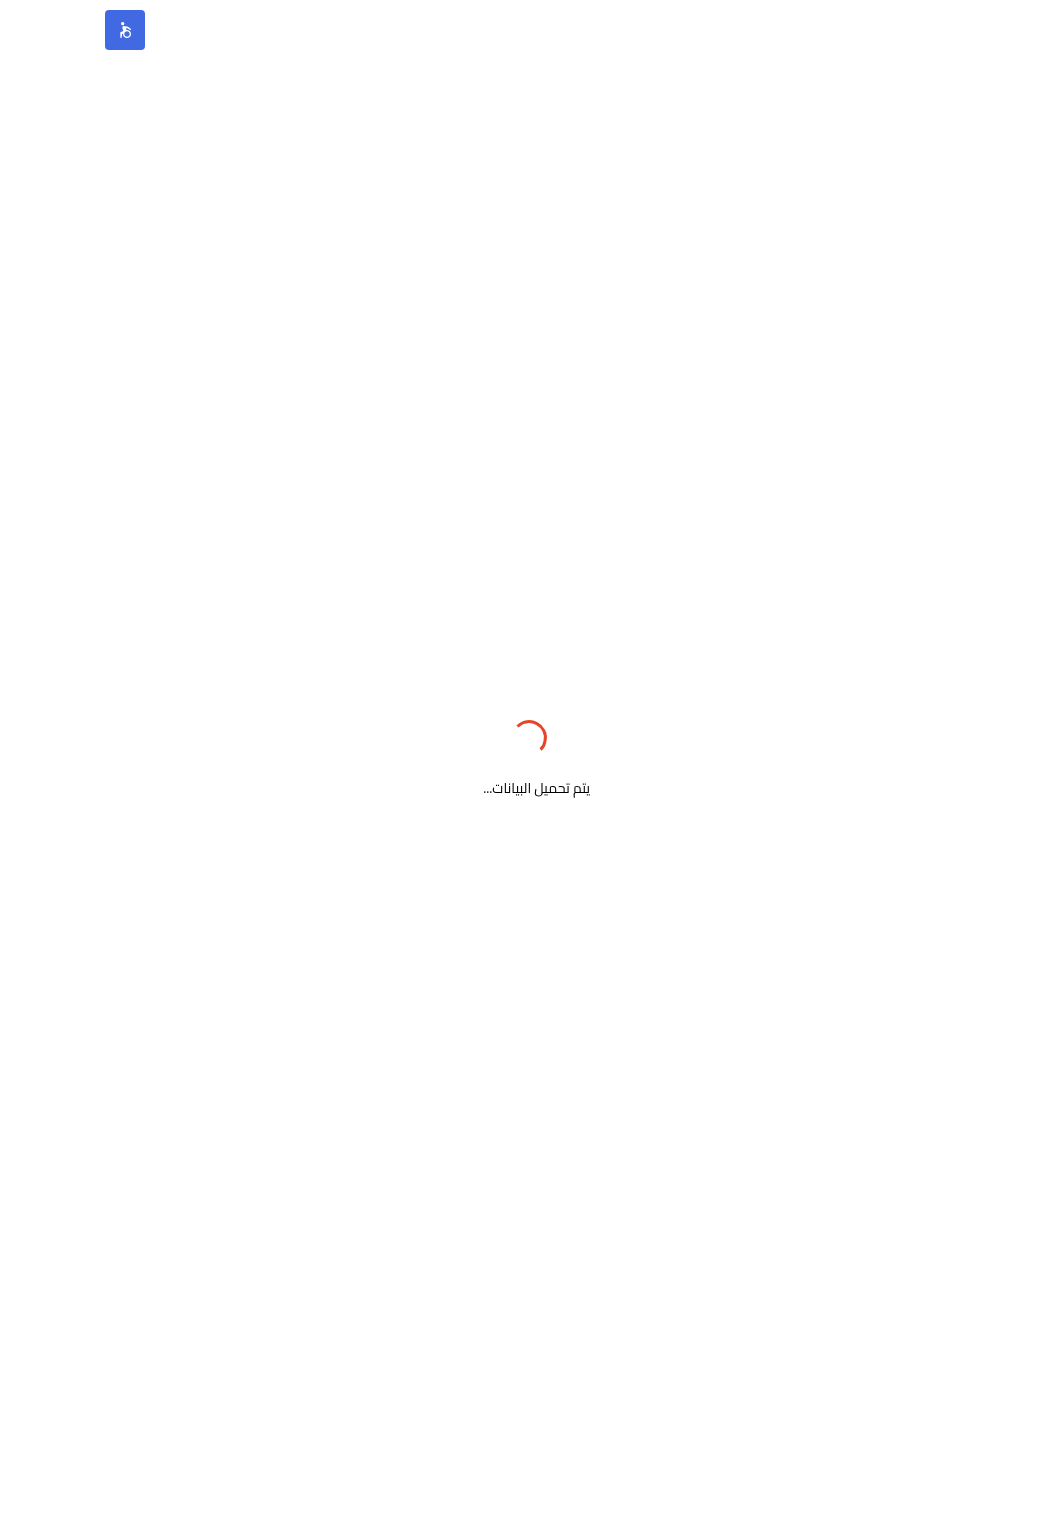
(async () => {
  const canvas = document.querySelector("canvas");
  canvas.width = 1057;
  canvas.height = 1540;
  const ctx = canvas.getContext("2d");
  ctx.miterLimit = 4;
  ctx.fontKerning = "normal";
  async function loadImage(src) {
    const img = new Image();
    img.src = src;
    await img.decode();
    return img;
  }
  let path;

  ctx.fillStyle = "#ffffff";
  ctx.fillRect(0, 0, 1057, 1540);
  ctx.fillStyle = "#4169e1";
  ctx.beginPath();
  ctx.roundRect(105, 10, 40, 40, 4);
  ctx.fill();
  ctx.drawImage(await loadImage("img/1.png"), 120, 22, 11, 16);
  path = new Path2D("M517.5 726.5C529 715 548.5 725.5 545 741C544.5 744.5 543 747.5 540.5 749.5");
  ctx.strokeStyle = "#e54628";
  ctx.lineWidth = 3;
  ctx.stroke(path);
  ctx.direction = "rtl";
  ctx.font = "14px Cairo";
  ctx.fillStyle = "#000000";
  ctx.fillText("يتم تحميل البيانات...", 590, 793);
})();
